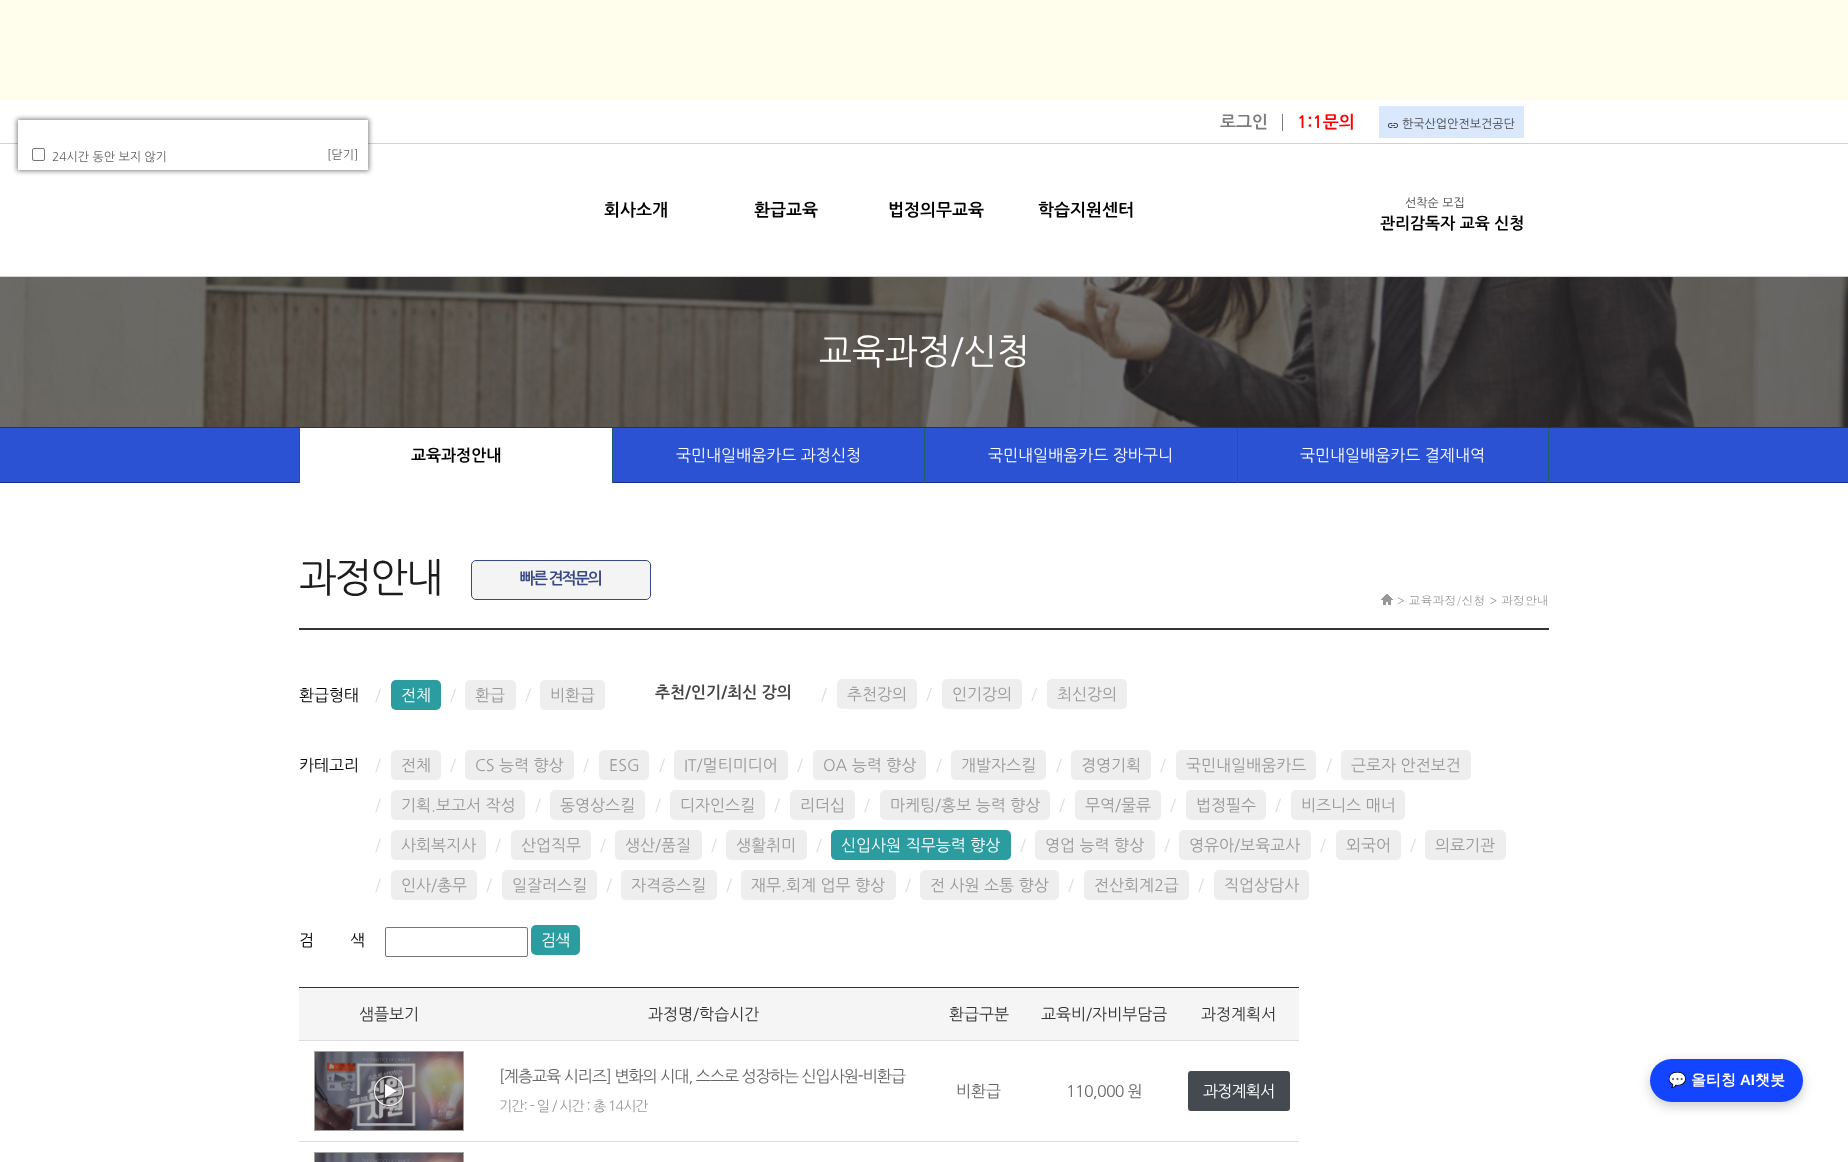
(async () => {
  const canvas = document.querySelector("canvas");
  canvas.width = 1848;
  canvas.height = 1162;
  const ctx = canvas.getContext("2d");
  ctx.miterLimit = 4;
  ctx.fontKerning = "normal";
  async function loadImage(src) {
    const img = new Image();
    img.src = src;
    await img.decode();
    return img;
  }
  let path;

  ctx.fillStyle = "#ffffff";
  ctx.fillRect(0, 0, 1848, 1162);
  for (const [x, y, w, h, color] of [
    [0, 0, 1848, 100, "#fffeed"],
    [1282, 114, 1, 17, "#7c7c7c"],
    [1379, 106, 145, 32, "#dae8fe"],
  ]) {
    ctx.fillStyle = color;
    ctx.fillRect(x, y, w, h);
  }
  ctx.drawImage(await loadImage("img/1.png"), 1388, 123, 10, 5);
  ctx.fillStyle = "#d2d2d2";
  ctx.fillRect(0, 143, 1848, 1);
  ctx.fillRect(0, 276, 1848, 1);
  ctx.save();
  path = new Path2D("M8 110H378V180H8ZM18 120H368V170H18Z");
  ctx.clip(path, "evenodd");
  ctx.fillStyle = "rgba(0, 0, 0, 0.5)";
  ctx.filter = "blur(2.5px)";
  ctx.beginPath();
  ctx.rect(17, 119, 352, 52);
  ctx.fill();
  ctx.filter = "none";
  ctx.restore();
  ctx.fillStyle = "#ffffff";
  ctx.fillRect(18, 143, 350, 1);
  ctx.beginPath();
  ctx.roundRect(32.5, 148.5, 12, 12, 1.5);
  ctx.strokeStyle = "#767676";
  ctx.stroke();
  ctx.fillStyle = "#333333";
  ctx.fillRect(299, 628, 1250, 2);
  ctx.fillStyle = "#f4f4f4";
  ctx.beginPath();
  ctx.roundRect(471.5, 560.5, 179, 39, 4.5);
  ctx.fill();
  ctx.strokeStyle = "#394987";
  ctx.stroke();
  ctx.drawImage(await loadImage("img/2.png"), 1381, 594, 12, 11);
  ctx.fillStyle = "#2b9da0";
  ctx.beginPath();
  ctx.roundRect(391, 680, 50, 30, 5);
  ctx.fill();
  ctx.fillStyle = "#eeeeee";
  ctx.beginPath();
  ctx.roundRect(465, 680, 51, 30, 5);
  ctx.fill();
  ctx.beginPath();
  ctx.roundRect(540, 680, 65, 30, 5);
  ctx.fill();
  ctx.beginPath();
  ctx.roundRect(837, 679, 80, 30, 5);
  ctx.fill();
  ctx.beginPath();
  ctx.roundRect(942, 679, 80, 30, 5);
  ctx.fill();
  ctx.beginPath();
  ctx.roundRect(1047, 679, 80, 30, 5);
  ctx.fill();
  ctx.beginPath();
  ctx.roundRect(391, 750, 50, 30, 5);
  ctx.fill();
  ctx.beginPath();
  ctx.roundRect(465, 750, 109, 30, 5);
  ctx.fill();
  ctx.beginPath();
  ctx.roundRect(599, 750, 50, 30, 5);
  ctx.fill();
  ctx.beginPath();
  ctx.roundRect(674, 750, 114, 30, 5);
  ctx.fill();
  ctx.beginPath();
  ctx.roundRect(813, 750, 113, 30, 5);
  ctx.fill();
  ctx.beginPath();
  ctx.roundRect(951, 750, 95, 30, 5);
  ctx.fill();
  ctx.beginPath();
  ctx.roundRect(1071, 750, 80, 30, 5);
  ctx.fill();
  ctx.beginPath();
  ctx.roundRect(1176, 750, 140, 30, 5);
  ctx.fill();
  ctx.beginPath();
  ctx.roundRect(1341, 750, 130, 30, 5);
  ctx.fill();
  ctx.beginPath();
  ctx.roundRect(391, 790, 134, 30, 5);
  ctx.fill();
  ctx.beginPath();
  ctx.roundRect(550, 790, 95, 30, 5);
  ctx.fill();
  ctx.beginPath();
  ctx.roundRect(670, 790, 95, 30, 5);
  ctx.fill();
  ctx.beginPath();
  ctx.roundRect(790, 790, 65, 30, 5);
  ctx.fill();
  ctx.beginPath();
  ctx.roundRect(880, 790, 170, 30, 5);
  ctx.fill();
  ctx.beginPath();
  ctx.roundRect(1075, 790, 86, 30, 5);
  ctx.fill();
  ctx.beginPath();
  ctx.roundRect(1186, 790, 80, 30, 5);
  ctx.fill();
  ctx.beginPath();
  ctx.roundRect(1291, 790, 114, 30, 5);
  ctx.fill();
  ctx.beginPath();
  ctx.roundRect(391, 830, 95, 30, 5);
  ctx.fill();
  ctx.beginPath();
  ctx.roundRect(511, 830, 80, 30, 5);
  ctx.fill();
  ctx.beginPath();
  ctx.roundRect(615, 830, 87, 30, 5);
  ctx.fill();
  ctx.beginPath();
  ctx.roundRect(726, 830, 81, 30, 5);
  ctx.fill();
  ctx.fillStyle = "#2b9da0";
  ctx.beginPath();
  ctx.roundRect(831, 830, 180, 30, 5);
  ctx.fill();
  ctx.fillStyle = "#eeeeee";
  ctx.beginPath();
  ctx.roundRect(1035, 830, 120, 30, 5);
  ctx.fill();
  ctx.beginPath();
  ctx.roundRect(1179, 830, 132, 30, 5);
  ctx.fill();
  ctx.beginPath();
  ctx.roundRect(1336, 830, 65, 30, 5);
  ctx.fill();
  ctx.beginPath();
  ctx.roundRect(1425, 830, 81, 30, 5);
  ctx.fill();
  ctx.beginPath();
  ctx.roundRect(391, 870, 86, 30, 5);
  ctx.fill();
  ctx.beginPath();
  ctx.roundRect(502, 870, 95, 30, 5);
  ctx.fill();
  ctx.beginPath();
  ctx.roundRect(621, 870, 96, 30, 5);
  ctx.fill();
  ctx.beginPath();
  ctx.roundRect(741, 870, 155, 30, 5);
  ctx.fill();
  ctx.beginPath();
  ctx.roundRect(920, 870, 139, 30, 5);
  ctx.fill();
  ctx.beginPath();
  ctx.roundRect(1084, 870, 105, 30, 5);
  ctx.fill();
  ctx.beginPath();
  ctx.roundRect(1214, 870, 95, 30, 5);
  ctx.fill();
  ctx.beginPath();
  ctx.roundRect(385.5, 927.5, 142, 29, 1.5);
  ctx.strokeStyle = "#767676";
  ctx.stroke();
  ctx.fillStyle = "#2b9da0";
  ctx.beginPath();
  ctx.roundRect(531, 925, 49, 30, 5);
  ctx.fill();
  for (const [x, y, w, h, color] of [
    [299, 987, 1000, 1, "#333333"],
    [299, 988, 1000, 52, "#f5f5f5"],
    [299, 1040, 1000, 1, "#dddddd"],
    [299, 1141, 180, 1, "#dddddd"],
  ]) {
    ctx.fillStyle = color;
    ctx.fillRect(x, y, w, h);
  }
  ctx.strokeStyle = "#a2a2a2";
  ctx.strokeRect(314.5, 1051.5, 149, 79);
  ctx.drawImage(await loadImage("img/3.png"), 315, 1052, 148, 78);
  ctx.drawImage(await loadImage("img/4.png"), 373, 1076, 32, 30);
  ctx.fillRect(479, 1141, 820, 1);
  ctx.fillStyle = "#444a50";
  ctx.beginPath();
  ctx.roundRect(1188, 1071, 102, 40, 3);
  ctx.fill();
  ctx.strokeRect(314.5, 1152.5, 149, 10);
  ctx.drawImage(await loadImage("img/5.png"), 315, 1153, 148, 9);
  ctx.drawImage(await loadImage("img/6.png"), 0, 277, 1848, 150);
  for (const [x, y, w, h, color] of [
    [0, 428, 1848, 54, "#2b52d2"],
    [0, 427, 1848, 1, "#1b2e8c"],
    [0, 482, 1848, 1, "#1b2e8c"],
    [300, 428, 312, 55, "#ffffff"],
    [299, 428, 1, 55, "#1a6064"],
    [612, 428, 1, 55, "#1a6064"],
    [924, 428, 1, 55, "#1a6064"],
    [1548, 428, 1, 55, "#1a6064"],
    [1237, 428, 1, 55, "#1a6064"],
  ]) {
    ctx.fillStyle = color;
    ctx.fillRect(x, y, w, h);
  }
  ctx.fillStyle = "rgba(0, 0, 0, 0.2)";
  ctx.filter = "blur(6px)";
  ctx.beginPath();
  ctx.roundRect(1650, 1063, 153, 43, 21.5);
  ctx.fill();
  ctx.filter = "none";
  ctx.fillStyle = "#1344ff";
  ctx.beginPath();
  ctx.roundRect(1650, 1059, 153, 43, 21.5);
  ctx.fill();
  ctx.font = "bold 17px NanumGothic";
  ctx.fillStyle = "#7c7c7c";
  ctx.fillText("로그인", 1220, 128);
  ctx.fillStyle = "#ff0000";
  ctx.fillText("1:1문의", 1297, 128);
  ctx.font = "12px NanumGothic";
  ctx.fillStyle = "#464546";
  ctx.fillText("한국산업안전보건공단", 1402, 128);
  ctx.font = "bold 17px NanumGothic";
  ctx.fillStyle = "#000000";
  for (const [text, x, y] of [
    ["회사소개", 604, 216],
    ["환급교육", 754, 216],
    ["법정의무교육", 888, 216],
    ["학습지원센터", 1038, 216],
  ]) {
    ctx.fillText(text, x, y);
  }
  ctx.font = "12px NanumGothic";
  ctx.fillStyle = "#464546";
  ctx.fillText("선착순 모집", 1405, 207);
  ctx.font = "bold 16px NanumGothic";
  ctx.fillStyle = "#000000";
  ctx.fillText("관리감독자 교육 신청", 1380, 229);
  ctx.font = "12px NanumGothic";
  ctx.fillStyle = "#5f5f5f";
  ctx.fillText("24시간 동안 보지 않기", 52, 161);
  ctx.fillText("[닫기]", 327, 159);
  ctx.letterSpacing = "-2px";
  ctx.font = "40px NanumGothic";
  ctx.fillStyle = "#1c1c1c";
  ctx.fillText("과정안내", 299, 592);
  ctx.font = "bold 16px NanumGothic";
  ctx.fillStyle = "#394987";
  ctx.fillText("빠른 견적문의", 520, 584);
  ctx.letterSpacing = "0px";
  ctx.font = "12px Dotum";
  ctx.fillStyle = "#999999";
  ctx.fillText("> 교육과정/신청 > 과정안내", 1397, 605);
  ctx.font = "16px NanumGothic";
  ctx.fillStyle = "#000000";
  ctx.fillText("환급형태", 299, 701);
  ctx.fillStyle = "#dddddd";
  ctx.fillText("/", 375, 701);
  ctx.fillStyle = "#ffffff";
  ctx.fillText("전체", 401, 701);
  ctx.fillStyle = "#dddddd";
  ctx.fillText("/", 450, 701);
  ctx.fillStyle = "#999999";
  ctx.fillText("환급", 475, 701);
  ctx.fillStyle = "#dddddd";
  ctx.fillText("/", 525, 701);
  ctx.fillStyle = "#999999";
  ctx.fillText("비환급", 550, 701);
  ctx.font = "bold 16px NanumGothic";
  ctx.fillStyle = "#464546";
  ctx.fillText("추천/인기/최신 강의", 655, 698);
  ctx.font = "16px NanumGothic";
  ctx.fillStyle = "#dddddd";
  ctx.fillText("/", 821, 700);
  ctx.fillStyle = "#999999";
  ctx.fillText("추천강의", 847, 700);
  ctx.fillStyle = "#dddddd";
  ctx.fillText("/", 926, 700);
  ctx.fillStyle = "#999999";
  ctx.fillText("인기강의", 952, 700);
  ctx.fillStyle = "#dddddd";
  ctx.fillText("/", 1031, 700);
  ctx.fillStyle = "#999999";
  ctx.fillText("최신강의", 1057, 700);
  ctx.fillStyle = "#000000";
  ctx.fillText("카테고리", 299, 771);
  ctx.fillStyle = "#dddddd";
  ctx.fillText("/", 375, 771);
  ctx.fillStyle = "#999999";
  ctx.fillText("전체", 401, 771);
  ctx.fillStyle = "#dddddd";
  ctx.fillText("/", 450, 771);
  ctx.fillStyle = "#999999";
  ctx.fillText("CS 능력 향상", 475, 771);
  ctx.fillStyle = "#dddddd";
  ctx.fillText("/", 583, 771);
  ctx.fillStyle = "#999999";
  ctx.fillText("ESG", 609, 771);
  ctx.fillStyle = "#dddddd";
  ctx.fillText("/", 659, 771);
  ctx.fillStyle = "#999999";
  ctx.fillText("IT/멀티미디어", 684, 771);
  ctx.fillStyle = "#dddddd";
  ctx.fillText("/", 797, 771);
  ctx.fillStyle = "#999999";
  ctx.fillText("OA 능력 향상", 823, 771);
  ctx.fillStyle = "#dddddd";
  ctx.fillText("/", 936, 771);
  ctx.fillStyle = "#999999";
  ctx.fillText("개발자스킬", 961, 771);
  ctx.fillStyle = "#dddddd";
  ctx.fillText("/", 1056, 771);
  ctx.fillStyle = "#999999";
  ctx.fillText("경영기획", 1081, 771);
  ctx.fillStyle = "#dddddd";
  ctx.fillText("/", 1160, 771);
  ctx.fillStyle = "#999999";
  ctx.fillText("국민내일배움카드", 1186, 771);
  ctx.fillStyle = "#dddddd";
  ctx.fillText("/", 1326, 771);
  ctx.fillStyle = "#999999";
  ctx.fillText("근로자 안전보건", 1351, 771);
  ctx.fillStyle = "#dddddd";
  ctx.fillText("/", 375, 811);
  ctx.fillStyle = "#999999";
  ctx.fillText("기획.보고서 작성", 401, 811);
  ctx.fillStyle = "#dddddd";
  ctx.fillText("/", 535, 811);
  ctx.fillStyle = "#999999";
  ctx.fillText("동영상스킬", 560, 811);
  ctx.fillStyle = "#dddddd";
  ctx.fillText("/", 655, 811);
  ctx.fillStyle = "#999999";
  ctx.fillText("디자인스킬", 680, 811);
  ctx.fillStyle = "#dddddd";
  ctx.fillText("/", 774, 811);
  ctx.fillStyle = "#999999";
  ctx.fillText("리더십", 800, 811);
  ctx.fillStyle = "#dddddd";
  ctx.fillText("/", 864, 811);
  ctx.fillStyle = "#999999";
  ctx.fillText("마케팅/홍보 능력 향상", 890, 811);
  ctx.fillStyle = "#dddddd";
  ctx.fillText("/", 1059, 811);
  ctx.fillStyle = "#999999";
  ctx.fillText("무역/물류", 1085, 811);
  ctx.fillStyle = "#dddddd";
  ctx.fillText("/", 1170, 811);
  ctx.fillStyle = "#999999";
  ctx.fillText("법정필수", 1196, 811);
  ctx.fillStyle = "#dddddd";
  ctx.fillText("/", 1275, 811);
  ctx.fillStyle = "#999999";
  ctx.fillText("비즈니스 매너", 1301, 811);
  ctx.fillStyle = "#dddddd";
  ctx.fillText("/", 375, 851);
  ctx.fillStyle = "#999999";
  ctx.fillText("사회복지사", 401, 851);
  ctx.fillStyle = "#dddddd";
  ctx.fillText("/", 495, 851);
  ctx.fillStyle = "#999999";
  ctx.fillText("산업직무", 521, 851);
  ctx.fillStyle = "#dddddd";
  ctx.fillText("/", 600, 851);
  ctx.fillStyle = "#999999";
  ctx.fillText("생산/품질", 625, 851);
  ctx.fillStyle = "#dddddd";
  ctx.fillText("/", 711, 851);
  ctx.fillStyle = "#999999";
  ctx.fillText("생활취미", 736, 851);
  ctx.fillStyle = "#dddddd";
  ctx.fillText("/", 816, 851);
  ctx.fillStyle = "#ffffff";
  ctx.fillText("신입사원 직무능력 향상", 841, 851);
  ctx.fillStyle = "#dddddd";
  ctx.fillText("/", 1020, 851);
  ctx.fillStyle = "#999999";
  ctx.fillText("영업 능력 향상", 1045, 851);
  ctx.fillStyle = "#dddddd";
  ctx.fillText("/", 1164, 851);
  ctx.fillStyle = "#999999";
  ctx.fillText("영유아/보육교사", 1189, 851);
  ctx.fillStyle = "#dddddd";
  ctx.fillText("/", 1320, 851);
  ctx.fillStyle = "#999999";
  ctx.fillText("외국어", 1346, 851);
  ctx.fillStyle = "#dddddd";
  ctx.fillText("/", 1410, 851);
  ctx.fillStyle = "#999999";
  ctx.fillText("의료기관", 1435, 851);
  ctx.fillStyle = "#dddddd";
  ctx.fillText("/", 375, 891);
  ctx.fillStyle = "#999999";
  ctx.fillText("인사/총무", 401, 891);
  ctx.fillStyle = "#dddddd";
  ctx.fillText("/", 486, 891);
  ctx.fillStyle = "#999999";
  ctx.fillText("일잘러스킬", 512, 891);
  ctx.fillStyle = "#dddddd";
  ctx.fillText("/", 606, 891);
  ctx.fillStyle = "#999999";
  ctx.fillText("자격증스킬", 631, 891);
  ctx.fillStyle = "#dddddd";
  ctx.fillText("/", 726, 891);
  ctx.fillStyle = "#999999";
  ctx.fillText("재무.회계 업무 향상", 751, 891);
  ctx.fillStyle = "#dddddd";
  ctx.fillText("/", 905, 891);
  ctx.fillStyle = "#999999";
  ctx.fillText("전 사원 소통 향상", 930, 891);
  ctx.fillStyle = "#dddddd";
  ctx.fillText("/", 1068, 891);
  ctx.fillStyle = "#999999";
  ctx.fillText("전산회계2급", 1094, 891);
  ctx.fillStyle = "#dddddd";
  ctx.fillText("/", 1198, 891);
  ctx.fillStyle = "#999999";
  ctx.fillText("직업상담사", 1224, 891);
  ctx.fillStyle = "#000000";
  ctx.fillText("검        색", 299, 946);
  ctx.letterSpacing = "-0.75px";
  ctx.fillStyle = "#ffffff";
  ctx.fillText("검색", 541, 946);
  ctx.letterSpacing = "0px";
  ctx.fillStyle = "#333333";
  for (const [text, x, y] of [
    ["샘플보기", 359, 1020],
    ["과정명/학습시간", 648, 1020],
    ["환급구분", 949, 1020],
    ["교육비/자비부담금", 1041, 1020],
    ["과정계획서", 1201, 1020],
  ]) {
    ctx.fillText(text, x, y);
  }
  ctx.letterSpacing = "-0.95px";
  ctx.fillStyle = "#666666";
  ctx.fillText("[계층교육 시리즈] 변화의 시대, 스스로 성장하는 신입사원-비환급", 499, 1082);
  ctx.font = "14px NanumGothic";
  ctx.fillStyle = "#999999";
  ctx.fillText("기간: - 일 / 시간 : 총 14시간", 499, 1111);
  ctx.letterSpacing = "0px";
  ctx.font = "16px NanumGothic";
  ctx.fillStyle = "#666666";
  ctx.fillText("비환급", 956, 1097);
  ctx.letterSpacing = "-0.75px";
  ctx.fillText("110,000 원", 1066, 1097);
  ctx.fillStyle = "#ffffff";
  ctx.fillText("과정계획서", 1203, 1097);
  ctx.letterSpacing = "0px";
  ctx.font = "35px NanumGothic";
  ctx.fillText("교육과정/신청", 819, 364);
  ctx.font = "bold 16px NanumGothic";
  ctx.fillStyle = "#000000";
  ctx.fillText("교육과정안내", 411, 461);
  ctx.font = "16px NanumGothic";
  ctx.fillStyle = "#ffffff";
  for (const [text, x, y] of [
    ["국민내일배움카드 과정신청", 676, 461],
    ["국민내일배움카드 장바구니", 988, 461],
    ["국민내일배움카드 결제내역", 1300, 461],
  ]) {
    ctx.fillText(text, x, y);
  }
  ctx.font = "bold 15px Noto Color Emoji";
  ctx.fillText("💬", 1668, 1085);
  ctx.font = "bold 15px WenQuanYi Zen Hei";
  ctx.fillText("올티칭", 1691, 1085);
  ctx.font = "bold 15px Liberation Sans";
  ctx.fillText("AI", 1740, 1085);
  ctx.font = "bold 15px WenQuanYi Zen Hei";
  ctx.fillText("챗봇", 1755, 1085);
})();
